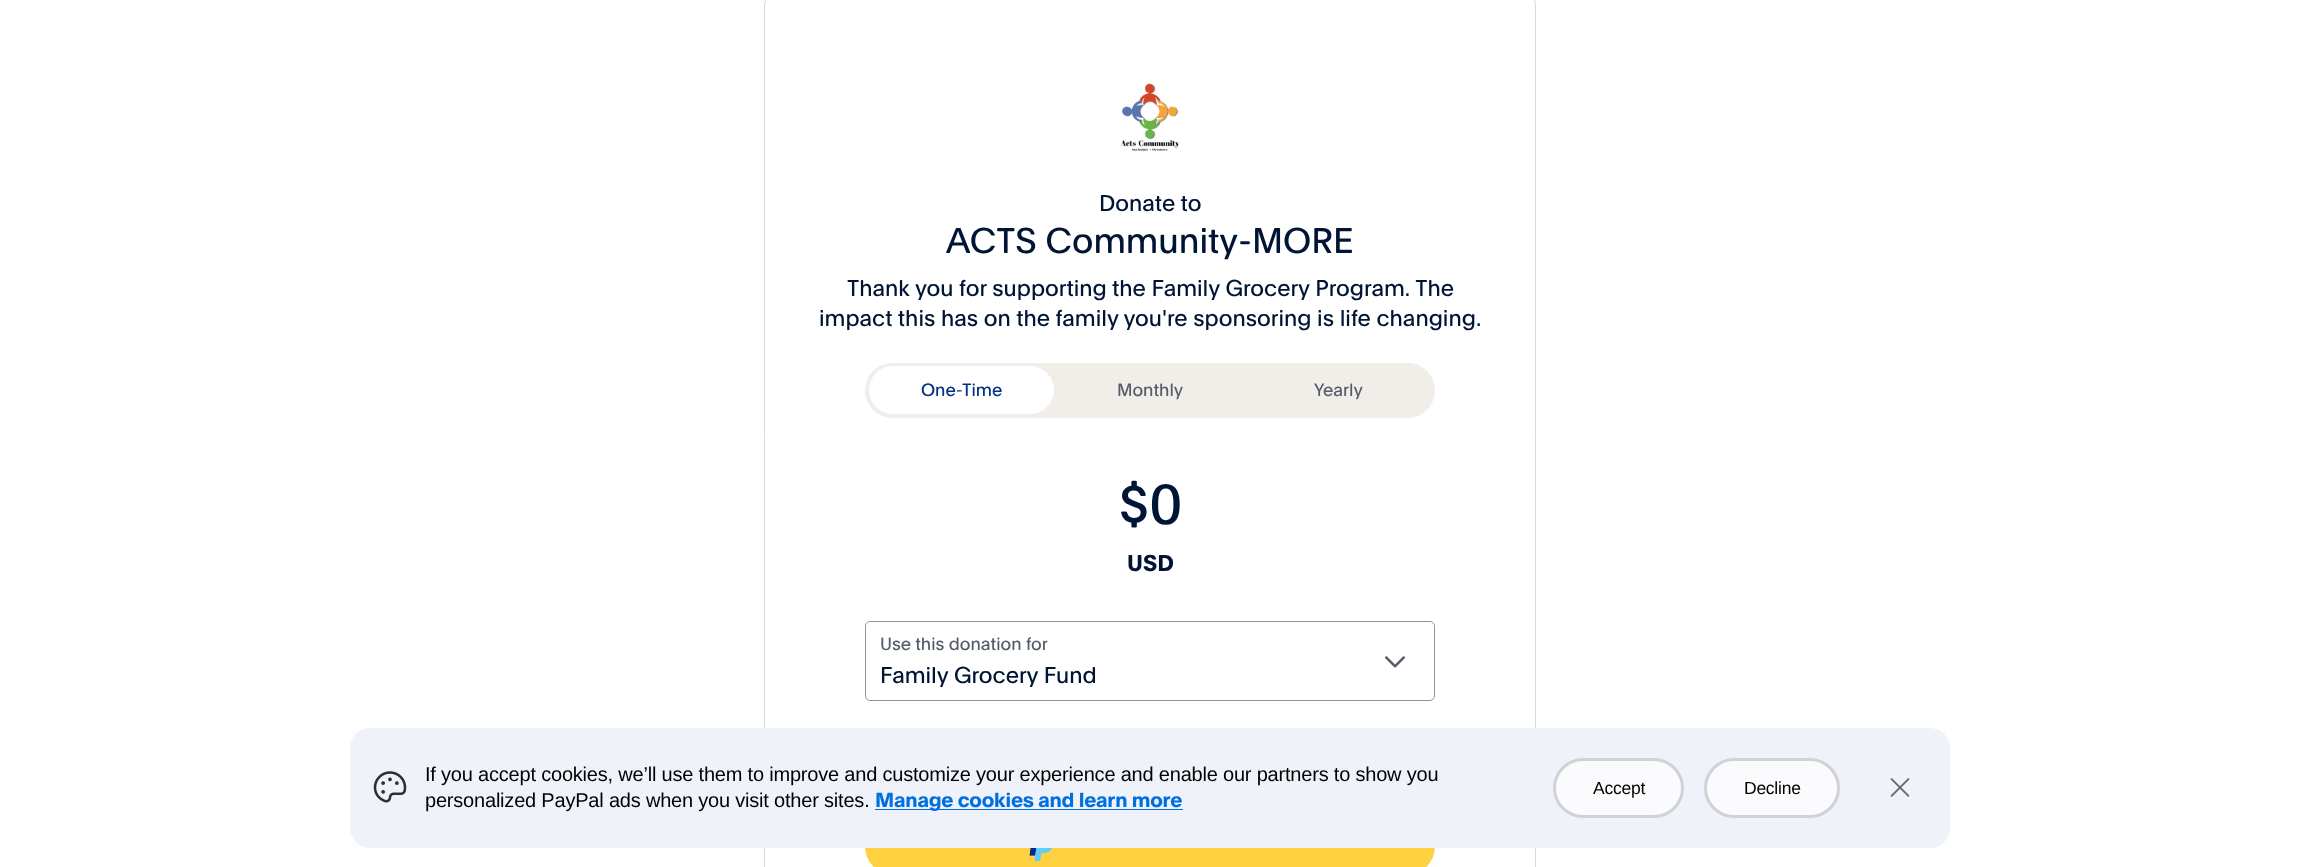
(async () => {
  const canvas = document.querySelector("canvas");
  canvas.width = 2300;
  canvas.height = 867;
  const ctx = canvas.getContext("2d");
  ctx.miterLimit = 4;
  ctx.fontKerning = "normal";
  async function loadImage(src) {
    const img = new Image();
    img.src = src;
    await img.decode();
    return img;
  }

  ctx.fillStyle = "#ffffff";
  ctx.fillRect(0, 0, 2300, 867);
  ctx.beginPath();
  ctx.roundRect(764.5, -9.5, 771, 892, 14.5);
  ctx.strokeStyle = "#dbd8d0";
  ctx.stroke();
  ctx.drawImage(await loadImage("img/1.png"), 1120, 83, 60, 68);
  ctx.fillStyle = "#f1ede8";
  ctx.beginPath();
  ctx.roundRect(865, 363, 570, 55, 27.5);
  ctx.fill();
  ctx.fillStyle = "#ffffff";
  ctx.beginPath();
  ctx.roundRect(869, 366, 185, 48, 24);
  ctx.fill();
  ctx.beginPath();
  ctx.roundRect(865.5, 621.5, 569, 79, 4.5);
  ctx.strokeStyle = "#929496";
  ctx.stroke();
  ctx.drawImage(await loadImage("img/2.png"), 1385, 656, 20, 12);
  ctx.fillStyle = "#ffd140";
  ctx.beginPath();
  ctx.roundRect(866.5, 817.5, 567, 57, 28.5);
  ctx.fill();
  ctx.strokeStyle = "#ffd140";
  ctx.lineWidth = 3;
  ctx.stroke();
  ctx.drawImage(await loadImage("img/3.png"), 1029, 848, 23, 13);
  ctx.fillStyle = "#f0f2f9";
  ctx.beginPath();
  ctx.roundRect(350, 728, 1600, 120, 20);
  ctx.fill();
  ctx.drawImage(await loadImage("img/4.png"), 373, 771, 34, 32);
  ctx.fillStyle = "#0070e0";
  ctx.fillRect(875, 809, 308, 1);
  ctx.fillStyle = "#fbfbfd";
  ctx.beginPath();
  ctx.roundRect(1554.5, 759.5, 128, 57, 28.5);
  ctx.fill();
  ctx.strokeStyle = "#cfd3d8";
  ctx.stroke();
  ctx.beginPath();
  ctx.roundRect(1705.5, 759.5, 133, 57, 28.5);
  ctx.fill();
  ctx.stroke();
  ctx.drawImage(await loadImage("img/5.png"), 1890, 778, 20, 19);
  ctx.font = "22.5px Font";
  ctx.fillStyle = "#001435";
  ctx.fillText("Donate to", 1099, 211);
  ctx.font = "35px Font";
  ctx.fillText("ACTS Community-MORE", 946, 253);
  ctx.font = "22.5px Font";
  ctx.fillText("Thank you for supporting the Family Grocery Program. The", 847, 296);
  ctx.fillText("impact this has on the family you're sponsoring is life changing.", 819, 326);
  ctx.font = "17.5px Font";
  ctx.fillStyle = "#003087";
  ctx.fillText("One-Time", 921, 396);
  ctx.fillStyle = "#545d68";
  ctx.fillText("Monthly", 1117, 396);
  ctx.fillText("Yearly", 1314, 396);
  ctx.font = "55px Font";
  ctx.fillStyle = "#001435";
  ctx.fillText("$0", 1118, 524);
  ctx.font = "bold 22.5px Font";
  ctx.fillText("USD", 1127, 571);
  ctx.font = "17.5px Font";
  ctx.fillStyle = "#545d68";
  ctx.fillText("Use this donation for", 880, 650);
  ctx.font = "22.5px Font";
  ctx.fillStyle = "#001435";
  ctx.fillText("Family Grocery Fund", 880, 683);
  ctx.letterSpacing = "-0.2px";
  ctx.font = "20px Liberation Sans";
  ctx.fillStyle = "#000000";
  ctx.fillText("If you accept cookies, we’ll use them to improve and customize your experience and enable our partners to show you", 425, 781);
  ctx.fillText("personalized PayPal ads when you visit other sites.", 425, 807);
  ctx.font = "bold 20px Font";
  ctx.fillStyle = "#0070e0";
  ctx.fillText("Manage cookies and learn more", 875, 807);
  ctx.letterSpacing = "-0.25px";
  ctx.font = "17.5px Liberation Sans";
  ctx.fillStyle = "#000000";
  ctx.fillText("Accept", 1593, 794);
  ctx.fillText("Decline", 1744, 794);
})();
